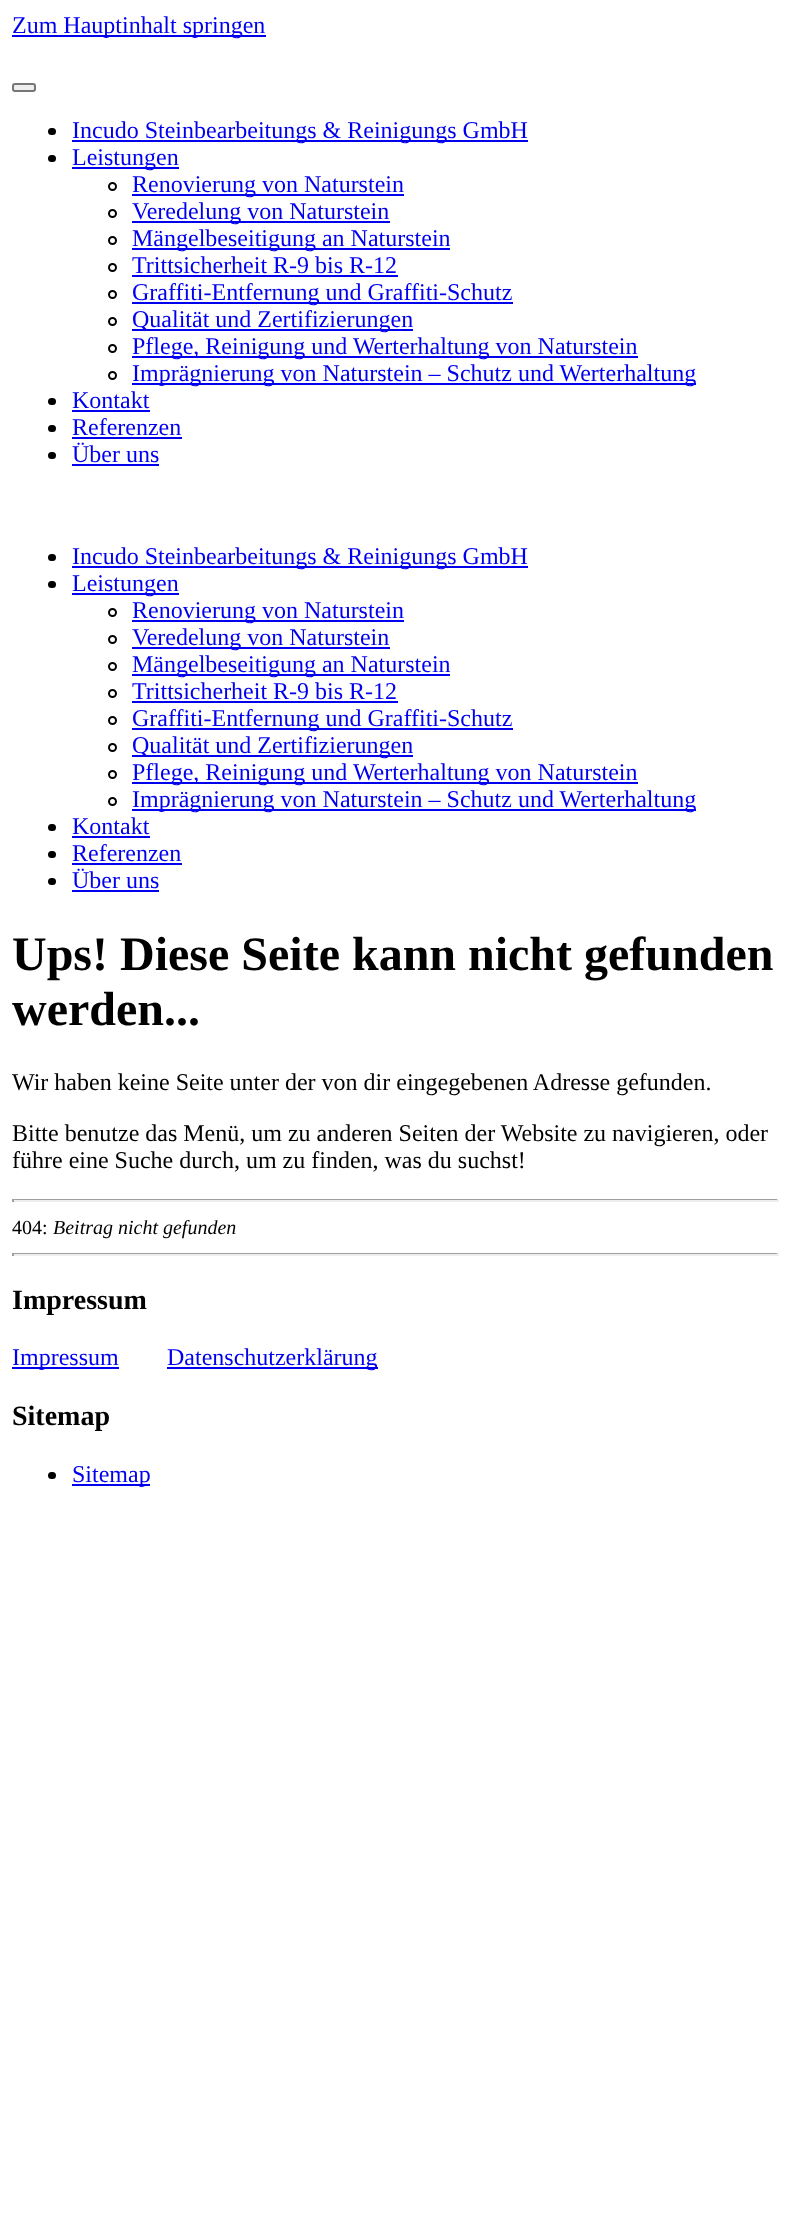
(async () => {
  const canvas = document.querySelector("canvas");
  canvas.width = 790;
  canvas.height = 2226;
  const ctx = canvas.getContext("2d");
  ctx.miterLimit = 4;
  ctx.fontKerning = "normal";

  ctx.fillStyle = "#ffffff";
  ctx.fillRect(0, 0, 790, 2226);
  ctx.fillStyle = "#0000ee";
  ctx.fillRect(12, 35, 254, 2);
  ctx.fillStyle = "#efefef";
  ctx.beginPath();
  ctx.roundRect(13, 84, 22, 7, 2);
  ctx.fill();
  ctx.strokeStyle = "#767676";
  ctx.lineWidth = 2;
  ctx.stroke();
  ctx.fillStyle = "#000000";
  ctx.beginPath();
  ctx.roundRect(48, 128, 8, 7, 3.5);
  ctx.fill();
  ctx.fillStyle = "#0000ee";
  ctx.fillRect(72, 140, 456, 2);
  ctx.fillStyle = "#000000";
  ctx.beginPath();
  ctx.roundRect(48, 155, 8, 7, 3.5);
  ctx.fill();
  ctx.fillStyle = "#0000ee";
  ctx.fillRect(72, 167, 107, 2);
  ctx.beginPath();
  ctx.arc(112.5, 186.5, 3.5, 0, Math.PI * 2);
  ctx.strokeStyle = "#000000";
  ctx.stroke();
  ctx.fillRect(132, 194, 272, 2);
  ctx.beginPath();
  ctx.arc(112.5, 213.5, 3.5, 0, Math.PI * 2);
  ctx.stroke();
  ctx.fillRect(132, 221, 258, 2);
  ctx.beginPath();
  ctx.arc(112.5, 240.5, 3.5, 0, Math.PI * 2);
  ctx.stroke();
  ctx.fillRect(132, 248, 318, 2);
  ctx.beginPath();
  ctx.arc(112.5, 267.5, 3.5, 0, Math.PI * 2);
  ctx.stroke();
  ctx.fillRect(132, 275, 266, 2);
  ctx.beginPath();
  ctx.arc(112.5, 294.5, 3.5, 0, Math.PI * 2);
  ctx.stroke();
  ctx.fillRect(132, 302, 381, 2);
  ctx.beginPath();
  ctx.arc(112.5, 321.5, 3.5, 0, Math.PI * 2);
  ctx.stroke();
  ctx.fillRect(132, 329, 281, 2);
  ctx.beginPath();
  ctx.arc(112.5, 348.5, 3.5, 0, Math.PI * 2);
  ctx.stroke();
  ctx.fillRect(132, 356, 506, 2);
  ctx.beginPath();
  ctx.arc(112.5, 375.5, 3.5, 0, Math.PI * 2);
  ctx.stroke();
  ctx.fillRect(132, 383, 564, 2);
  ctx.fillStyle = "#000000";
  ctx.beginPath();
  ctx.roundRect(48, 398, 8, 7, 3.5);
  ctx.fill();
  ctx.fillStyle = "#0000ee";
  ctx.fillRect(72, 410, 78, 2);
  ctx.fillStyle = "#000000";
  ctx.beginPath();
  ctx.roundRect(48, 425, 8, 7, 3.5);
  ctx.fill();
  ctx.fillStyle = "#0000ee";
  ctx.fillRect(72, 437, 110, 2);
  ctx.fillStyle = "#000000";
  ctx.beginPath();
  ctx.roundRect(48, 452, 8, 7, 3.5);
  ctx.fill();
  ctx.fillStyle = "#0000ee";
  ctx.fillRect(72, 464, 87, 2);
  ctx.fillStyle = "#000000";
  ctx.beginPath();
  ctx.roundRect(48, 554, 8, 7, 3.5);
  ctx.fill();
  ctx.fillStyle = "#0000ee";
  ctx.fillRect(72, 566, 456, 2);
  ctx.fillStyle = "#000000";
  ctx.beginPath();
  ctx.roundRect(48, 581, 8, 7, 3.5);
  ctx.fill();
  ctx.fillStyle = "#0000ee";
  ctx.fillRect(72, 593, 107, 2);
  ctx.beginPath();
  ctx.arc(112.5, 612.5, 3.5, 0, Math.PI * 2);
  ctx.stroke();
  ctx.fillRect(132, 620, 272, 2);
  ctx.beginPath();
  ctx.arc(112.5, 639.5, 3.5, 0, Math.PI * 2);
  ctx.stroke();
  ctx.fillRect(132, 647, 258, 2);
  ctx.beginPath();
  ctx.arc(112.5, 666.5, 3.5, 0, Math.PI * 2);
  ctx.stroke();
  ctx.fillRect(132, 674, 318, 2);
  ctx.beginPath();
  ctx.arc(112.5, 693.5, 3.5, 0, Math.PI * 2);
  ctx.stroke();
  ctx.fillRect(132, 701, 266, 2);
  ctx.beginPath();
  ctx.arc(112.5, 720.5, 3.5, 0, Math.PI * 2);
  ctx.stroke();
  ctx.fillRect(132, 728, 381, 2);
  ctx.beginPath();
  ctx.arc(112.5, 747.5, 3.5, 0, Math.PI * 2);
  ctx.stroke();
  ctx.fillRect(132, 755, 281, 2);
  ctx.beginPath();
  ctx.arc(112.5, 774.5, 3.5, 0, Math.PI * 2);
  ctx.stroke();
  ctx.fillRect(132, 782, 506, 2);
  ctx.beginPath();
  ctx.arc(112.5, 801.5, 3.5, 0, Math.PI * 2);
  ctx.stroke();
  ctx.fillRect(132, 809, 564, 2);
  ctx.fillStyle = "#000000";
  ctx.beginPath();
  ctx.roundRect(48, 824, 8, 7, 3.5);
  ctx.fill();
  ctx.fillStyle = "#0000ee";
  ctx.fillRect(72, 836, 78, 2);
  ctx.fillStyle = "#000000";
  ctx.beginPath();
  ctx.roundRect(48, 851, 8, 7, 3.5);
  ctx.fill();
  ctx.fillStyle = "#0000ee";
  ctx.fillRect(72, 863, 110, 2);
  ctx.fillStyle = "#000000";
  ctx.beginPath();
  ctx.roundRect(48, 878, 8, 7, 3.5);
  ctx.fill();
  for (const [x, y, w, h, color] of [
    [72, 890, 87, 2, "#0000ee"],
    [12, 1199, 767, 1, "#9f9f9f"],
    [777, 1199, 2, 3, "#eeeeee"],
    [12, 1200, 767, 2, "#eeeeee"],
    [12, 1199, 2, 3, "#9f9f9f"],
    [12, 1253, 767, 1, "#9f9f9f"],
    [777, 1253, 2, 3, "#eeeeee"],
    [12, 1254, 767, 2, "#eeeeee"],
    [12, 1253, 2, 3, "#9f9f9f"],
    [12, 1367, 107, 2, "#0000ee"],
    [167, 1367, 211, 2, "#0000ee"],
  ]) {
    ctx.fillStyle = color;
    ctx.fillRect(x, y, w, h);
  }
  ctx.fillStyle = "#000000";
  ctx.beginPath();
  ctx.roundRect(48, 1472, 8, 7, 3.5);
  ctx.fill();
  ctx.fillStyle = "#0000ee";
  ctx.fillRect(72, 1484, 78, 2);
  ctx.font = "24px Liberation Serif";
  for (const [text, x, y] of [
    ["Zum Hauptinhalt springen", 12, 33],
    ["Incudo Steinbearbeitungs & Reinigungs GmbH", 72, 138],
    ["Leistungen", 72, 165],
    ["Renovierung von Naturstein", 132, 192],
    ["Veredelung von Naturstein", 132, 219],
    ["Mängelbeseitigung an Naturstein", 132, 246],
    ["Trittsicherheit R-9 bis R-12", 132, 273],
    ["Graffiti-Entfernung und Graffiti-Schutz", 132, 300],
    ["Qualität und Zertifizierungen", 132, 327],
    ["Pflege, Reinigung und Werterhaltung von Naturstein", 132, 354],
    ["Imprägnierung von Naturstein – Schutz und Werterhaltung", 132, 381],
    ["Kontakt", 72, 408],
    ["Referenzen", 72, 435],
    ["Über uns", 72, 462],
    ["Incudo Steinbearbeitungs & Reinigungs GmbH", 72, 564],
    ["Leistungen", 72, 591],
    ["Renovierung von Naturstein", 132, 618],
    ["Veredelung von Naturstein", 132, 645],
    ["Mängelbeseitigung an Naturstein", 132, 672],
    ["Trittsicherheit R-9 bis R-12", 132, 699],
    ["Graffiti-Entfernung und Graffiti-Schutz", 132, 726],
    ["Qualität und Zertifizierungen", 132, 753],
    ["Pflege, Reinigung und Werterhaltung von Naturstein", 132, 780],
    ["Imprägnierung von Naturstein – Schutz und Werterhaltung", 132, 807],
    ["Kontakt", 72, 834],
    ["Referenzen", 72, 861],
    ["Über uns", 72, 888],
  ]) {
    ctx.fillText(text, x, y);
  }
  ctx.font = "bold 48px Liberation Serif";
  ctx.fillStyle = "#000000";
  ctx.fillText("Ups! Diese Seite kann nicht gefunden", 12, 970);
  ctx.fillText("werden...", 12, 1025);
  ctx.font = "24px Liberation Serif";
  for (const [text, x, y] of [
    ["Wir haben keine Seite unter der von dir eingegebenen Adresse gefunden.", 12, 1090],
    ["Bitte benutze das Menü, um zu anderen Seiten der Website zu navigieren, oder", 12, 1141],
    ["führe eine Suche durch, um zu finden, was du suchst!", 12, 1168],
  ]) {
    ctx.fillText(text, x, y);
  }
  ctx.font = "20px Liberation Serif";
  ctx.fillText("404:", 12, 1234);
  ctx.font = "italic 20px Liberation Serif";
  ctx.fillText("Beitrag nicht gefunden", 53, 1234);
  ctx.font = "bold 28px Liberation Serif";
  ctx.fillText("Impressum", 12, 1309);
  ctx.font = "24px Liberation Serif";
  ctx.fillStyle = "#0000ee";
  ctx.fillText("Impressum", 12, 1365);
  ctx.fillText("Datenschutzerklärung", 167, 1365);
  ctx.font = "bold 28px Liberation Serif";
  ctx.fillStyle = "#000000";
  ctx.fillText("Sitemap", 12, 1425);
  ctx.font = "24px Liberation Serif";
  ctx.fillStyle = "#0000ee";
  ctx.fillText("Sitemap", 72, 1482);
})();
